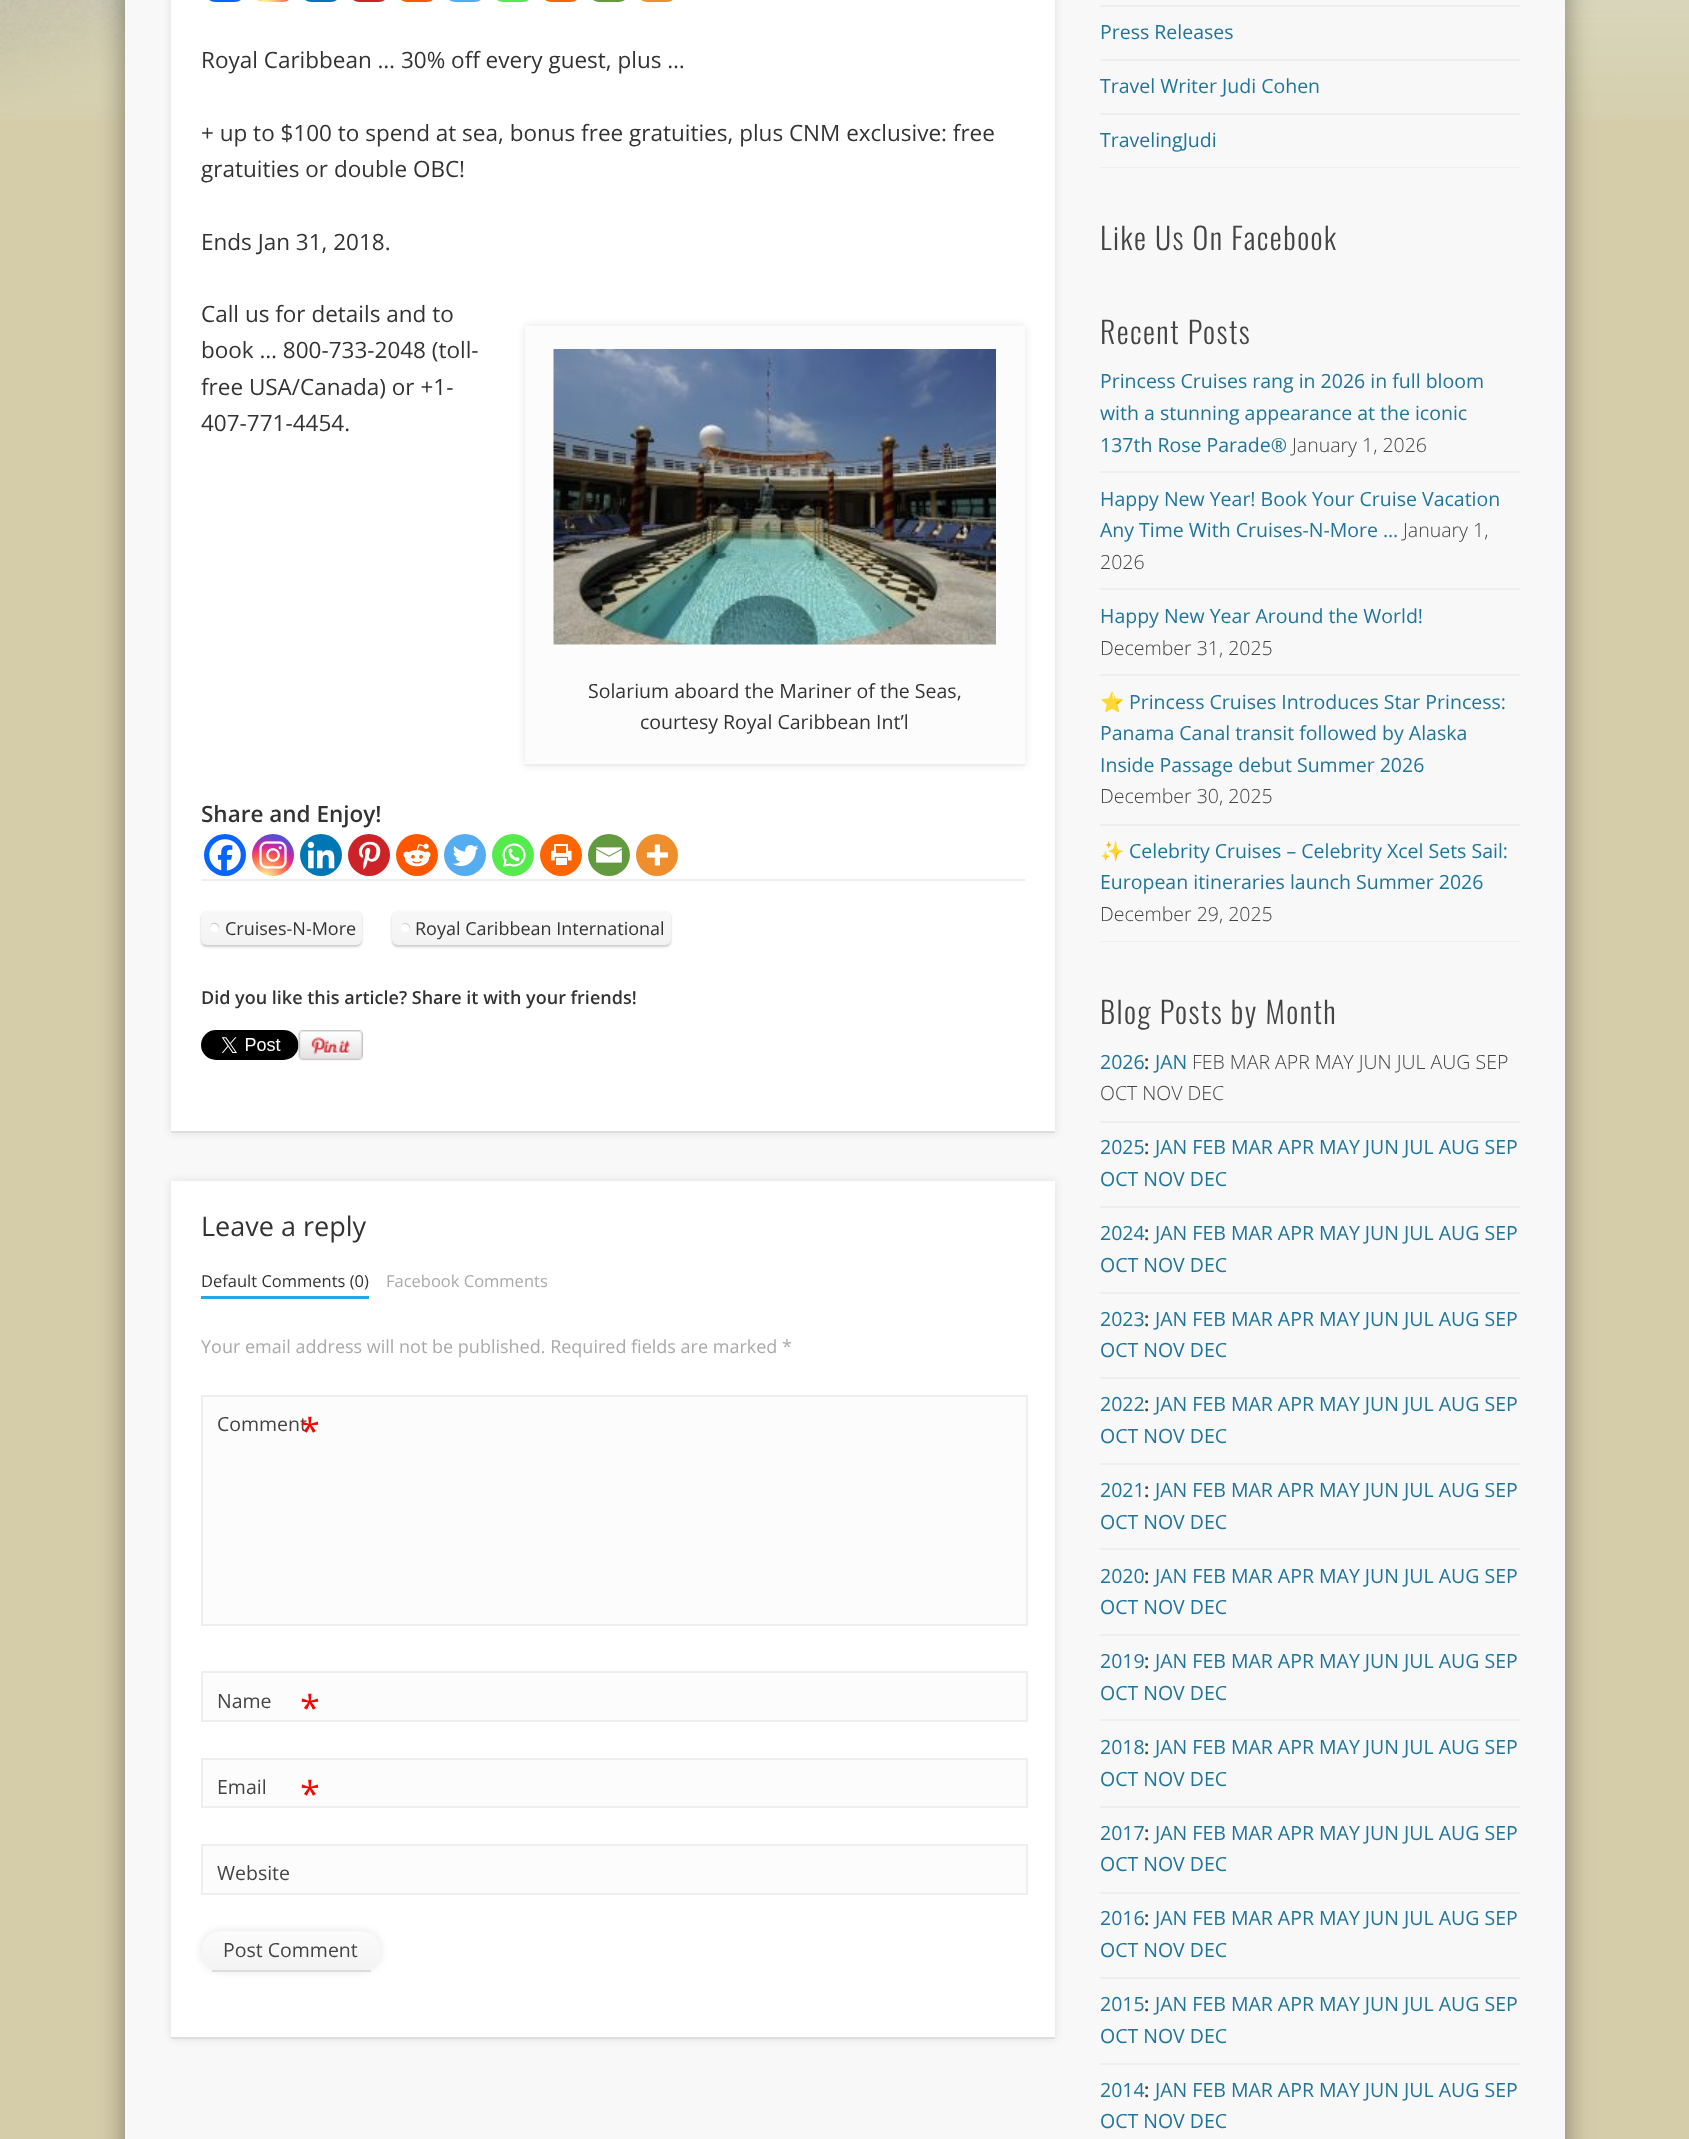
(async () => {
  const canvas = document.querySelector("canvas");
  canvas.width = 1689;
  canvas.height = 2139;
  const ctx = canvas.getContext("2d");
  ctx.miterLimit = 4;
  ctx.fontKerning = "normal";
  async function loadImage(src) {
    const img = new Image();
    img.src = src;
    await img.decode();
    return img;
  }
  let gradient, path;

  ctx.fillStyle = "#d5cdaa";
  ctx.fillRect(0, 0, 1689, 2139);
  ctx.drawImage(await loadImage("img/1.png"), 0, 0, 1689, 119);
  ctx.fillStyle = "rgba(0, 0, 0, 0.4)";
  ctx.filter = "blur(13.5px)";
  ctx.beginPath();
  ctx.rect(125, -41, 1440, 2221);
  ctx.fill();
  ctx.filter = "none";
  ctx.fillStyle = "#f8f8f8";
  ctx.fillRect(125, 0, 1440, 2139);
  ctx.fillStyle = "rgba(0, 0, 0, 0.1)";
  ctx.filter = "blur(4px)";
  ctx.beginPath();
  ctx.rect(171, -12, 884, 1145);
  ctx.fill();
  ctx.filter = "none";
  ctx.fillStyle = "#ffffff";
  ctx.fillRect(171, 0, 884, 1131);
  ctx.fillStyle = "#dedede";
  ctx.fillRect(171, 1131, 884, 2);
  ctx.fillStyle = "#0765fe";
  ctx.beginPath();
  ctx.roundRect(204, -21, 42, 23, 21);
  ctx.fill();
  gradient = ctx.createRadialGradient(265, 4.4, 0, 265, 4.4, 54);
  gradient.addColorStop(0, "#fdf497");
  gradient.addColorStop(0.05, "#fdf497");
  gradient.addColorStop(0.45, "#fd5949");
  gradient.addColorStop(0.6, "#d6249f");
  gradient.addColorStop(0.9, "#285aeb");
  ctx.fillStyle = gradient;
  ctx.beginPath();
  ctx.roundRect(252, -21, 42, 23, 21);
  ctx.fill();
  ctx.fillStyle = "#0077b5";
  ctx.beginPath();
  ctx.roundRect(300, -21, 42, 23, 21);
  ctx.fill();
  ctx.fillStyle = "#cc2329";
  ctx.beginPath();
  ctx.roundRect(348, -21, 42, 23, 21);
  ctx.fill();
  ctx.fillStyle = "#ff5700";
  ctx.beginPath();
  ctx.roundRect(396, -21, 42, 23, 21);
  ctx.fill();
  ctx.fillStyle = "#55acee";
  ctx.beginPath();
  ctx.roundRect(444, -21, 42, 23, 21);
  ctx.fill();
  ctx.fillStyle = "#55eb4c";
  ctx.beginPath();
  ctx.roundRect(492, -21, 42, 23, 21);
  ctx.fill();
  ctx.fillStyle = "#fd6500";
  ctx.beginPath();
  ctx.roundRect(540, -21, 42, 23, 21);
  ctx.fill();
  ctx.fillStyle = "#649a3f";
  ctx.beginPath();
  ctx.roundRect(588, -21, 42, 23, 21);
  ctx.fill();
  ctx.fillStyle = "#ee8e2d";
  ctx.beginPath();
  ctx.roundRect(636, -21, 42, 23, 21);
  ctx.fill();
  ctx.fillStyle = "rgba(0, 0, 0, 0.1)";
  ctx.filter = "blur(4px)";
  ctx.beginPath();
  ctx.rect(525, 326, 500, 439);
  ctx.fill();
  ctx.filter = "none";
  for (const [x, y, w, h, color] of [
    [525, 326, 500, 438, "#fcfcfc"],
    [525, 764, 500, 2, "#eeeeee"],
    [554, 644, 442, 1, "#ffffff"],
  ]) {
    ctx.fillStyle = color;
    ctx.fillRect(x, y, w, h);
  }
  ctx.drawImage(await loadImage("img/2.png"), 553, 349, 443, 296);
  ctx.fillStyle = "#0765fe";
  ctx.beginPath();
  ctx.arc(225, 855, 21, 0, Math.PI * 2);
  ctx.fill();
  ctx.drawImage(await loadImage("img/3.png"), 209, 839, 32, 32);
  gradient = ctx.createRadialGradient(265, 879, 0, 265, 879, 54);
  gradient.addColorStop(0, "#fdf497");
  gradient.addColorStop(0.05, "#fdf497");
  gradient.addColorStop(0.45, "#fd5949");
  gradient.addColorStop(0.6, "#d6249f");
  gradient.addColorStop(0.9, "#285aeb");
  ctx.fillStyle = gradient;
  ctx.beginPath();
  ctx.arc(273, 855, 21, 0, Math.PI * 2);
  ctx.fill();
  ctx.drawImage(await loadImage("img/4.png"), 259, 841, 28, 28);
  ctx.fillStyle = "#0077b5";
  ctx.beginPath();
  ctx.arc(321, 855, 21, 0, Math.PI * 2);
  ctx.fill();
  ctx.drawImage(await loadImage("img/5.png"), 307, 841, 28, 28);
  ctx.fillStyle = "#cc2329";
  ctx.beginPath();
  ctx.arc(369, 855, 21, 0, Math.PI * 2);
  ctx.fill();
  ctx.drawImage(await loadImage("img/6.png"), 358, 841, 23, 29);
  ctx.fillStyle = "#ff5700";
  ctx.beginPath();
  ctx.arc(417, 855, 21, 0, Math.PI * 2);
  ctx.fill();
  ctx.drawImage(await loadImage("img/7.png"), 403, 843, 28, 24);
  ctx.fillStyle = "#55acee";
  ctx.beginPath();
  ctx.arc(465, 855, 21, 0, Math.PI * 2);
  ctx.fill();
  ctx.drawImage(await loadImage("img/8.png"), 452, 845, 27, 22);
  ctx.fillStyle = "#55eb4c";
  ctx.beginPath();
  ctx.arc(513, 855, 21, 0, Math.PI * 2);
  ctx.fill();
  ctx.drawImage(await loadImage("img/9.png"), 502, 843, 24, 24);
  ctx.fillStyle = "#fd6500";
  ctx.beginPath();
  ctx.arc(561, 855, 21, 0, Math.PI * 2);
  ctx.fill();
  ctx.drawImage(await loadImage("img/10.png"), 551, 844, 21, 21);
  ctx.fillStyle = "#649a3f";
  ctx.beginPath();
  ctx.arc(609, 855, 21, 0, Math.PI * 2);
  ctx.fill();
  ctx.drawImage(await loadImage("img/11.png"), 596, 847, 26, 16);
  ctx.fillStyle = "#ee8e2d";
  ctx.beginPath();
  ctx.arc(657, 855, 21, 0, Math.PI * 2);
  ctx.fill();
  ctx.drawImage(await loadImage("img/12.png"), 646, 844, 22, 22);
  ctx.fillStyle = "#eeeeee";
  ctx.fillRect(201, 879, 824, 2);
  ctx.fillStyle = "rgba(0, 0, 0, 0.2)";
  ctx.filter = "blur(1px)";
  ctx.beginPath();
  ctx.roundRect(201, 912, 161, 35, 6);
  ctx.fill();
  ctx.filter = "none";
  gradient = ctx.createLinearGradient(281, 911, 281, 945);
  gradient.addColorStop(0, "#f8f8f8");
  gradient.addColorStop(1, "#f3f3f3");
  ctx.fillStyle = gradient;
  ctx.beginPath();
  ctx.roundRect(201, 911, 161, 34, 6);
  ctx.fill();
  ctx.fillStyle = "#ffffff";
  ctx.beginPath();
  ctx.arc(214.5, 927.5, 4.5, 0, Math.PI * 2);
  ctx.fill();
  ctx.fillStyle = "rgba(0, 0, 0, 0.2)";
  path = new Path2D("M214 924C217.5 924 219 927.5 218.5 930C221.5 924.5 213 919.5 210.5 925.5C210 927 210 928 210.5 929C210 926.5 211.5 924 214 924Z");
  ctx.fill(path);
  ctx.filter = "blur(1px)";
  ctx.beginPath();
  ctx.roundRect(392, 912, 279, 35, 6);
  ctx.fill();
  ctx.filter = "none";
  gradient = ctx.createLinearGradient(531, 911, 531, 945);
  gradient.addColorStop(0, "#f8f8f8");
  gradient.addColorStop(1, "#f3f3f3");
  ctx.fillStyle = gradient;
  ctx.beginPath();
  ctx.roundRect(392, 911, 279, 34, 6);
  ctx.fill();
  ctx.fillStyle = "#ffffff";
  ctx.beginPath();
  ctx.arc(405.5, 927.5, 4.5, 0, Math.PI * 2);
  ctx.fill();
  ctx.fillStyle = "rgba(0, 0, 0, 0.2)";
  path = new Path2D("M405 924C408.5 924 410 927.5 409.5 930C412.5 924.5 404 920 401.5 925.5C402 924.5 403.5 924 405 924Z");
  ctx.fill(path);
  ctx.drawImage(await loadImage("img/14.png"), 298, 1030, 65, 31);
  ctx.drawImage(await loadImage("img/13.png"), 201, 1030, 98, 30);
  ctx.fillStyle = "rgba(0, 0, 0, 0.1)";
  ctx.filter = "blur(4px)";
  ctx.beginPath();
  ctx.rect(171, 1181, 884, 858);
  ctx.fill();
  ctx.filter = "none";
  for (const [x, y, w, h, color] of [
    [171, 1181, 884, 856, "#ffffff"],
    [171, 2037, 884, 2, "#dedede"],
    [201, 1296, 168, 3, "#23a9e1"],
  ]) {
    ctx.fillStyle = color;
    ctx.fillRect(x, y, w, h);
  }
  ctx.fillStyle = "#fcfcfc";
  ctx.beginPath();
  ctx.rect(202, 1396, 825, 229);
  ctx.fill();
  ctx.strokeStyle = "#eeeeee";
  ctx.lineWidth = 2;
  ctx.stroke();
  ctx.beginPath();
  ctx.rect(202, 1672, 825, 49);
  ctx.fill();
  ctx.stroke();
  ctx.beginPath();
  ctx.rect(202, 1759, 825, 48);
  ctx.fill();
  ctx.stroke();
  ctx.beginPath();
  ctx.rect(202, 1845, 825, 49);
  ctx.fill();
  ctx.stroke();
  ctx.fillStyle = "rgba(0, 0, 0, 0.1)";
  ctx.filter = "blur(4px)";
  ctx.beginPath();
  ctx.roundRect(201, 1931, 180, 40, 20);
  ctx.fill();
  ctx.filter = "none";
  ctx.save();
  ctx.beginPath();
  ctx.roundRect(201, 1931, 180, 40, 20);
  ctx.clip();
  gradient = ctx.createLinearGradient(291, 1931, 291, 1970);
  gradient.addColorStop(0, "#fcfcfc");
  gradient.addColorStop(1, "#f3f3f3");
  ctx.fillStyle = gradient;
  ctx.beginPath();
  ctx.roundRect(201, 1931, 180, 39, [20, 20, 0, 0]);
  ctx.fill();
  ctx.restore();
  for (const [x, y, w, h, color] of [
    [212, 1970, 159, 2, "#dddddd"],
    [1100, 5, 420, 2, "#eeeeee"],
    [1100, 59, 420, 2, "#eeeeee"],
    [1100, 113, 420, 2, "#eeeeee"],
    [1100, 167, 420, 1, "#eeeeee"],
    [1100, 471, 420, 2, "#eeeeee"],
    [1100, 588, 420, 2, "#eeeeee"],
    [1100, 674, 420, 2, "#eeeeee"],
    [1100, 824, 420, 2, "#eeeeee"],
    [1100, 941, 420, 1, "#eeeeee"],
    [1100, 1121, 420, 2, "#eeeeee"],
    [1100, 1206, 420, 2, "#eeeeee"],
    [1100, 1292, 420, 2, "#eeeeee"],
    [1100, 1377, 420, 2, "#eeeeee"],
    [1100, 1463, 420, 2, "#eeeeee"],
    [1100, 1548, 420, 2, "#eeeeee"],
    [1100, 1634, 420, 2, "#eeeeee"],
    [1100, 1719, 420, 2, "#eeeeee"],
    [1100, 1806, 420, 2, "#eeeeee"],
    [1100, 1892, 420, 2, "#eeeeee"],
    [1100, 1977, 420, 2, "#eeeeee"],
    [1100, 2063, 420, 2, "#eeeeee"],
  ]) {
    ctx.fillStyle = color;
    ctx.fillRect(x, y, w, h);
  }
  ctx.font = "22.5px Open Sans";
  ctx.fillStyle = "#333333";
  for (const [text, x, y] of [
    ["Royal Caribbean … 30% off every guest, plus …", 201, 68],
    ["+ up to $100 to spend at sea, bonus free gratuities, plus CNM exclusive: free", 201, 141],
    ["gratuities or double OBC!", 201, 177],
    ["Ends Jan 31, 2018.", 201, 250],
    ["Call us for details and to", 201, 322],
    ["book … 800-733-2048 (toll-", 201, 358],
    ["free USA/Canada) or +1-", 201, 395],
    ["407-771-4454.", 201, 431],
  ]) {
    ctx.fillText(text, x, y);
  }
  ctx.font = "19.5px Open Sans";
  ctx.fillText("Solarium aboard the Mariner of the Seas,", 588, 698);
  ctx.fillText("courtesy Royal Caribbean Int’l", 640, 729);
  ctx.font = "600 22.5px Open Sans";
  ctx.fillText("Share and Enjoy!", 201, 822);
  ctx.font = "18px Open Sans";
  ctx.fillText("Cruises-N-More", 225, 935);
  ctx.fillText("Royal Caribbean International", 415, 935);
  ctx.font = "600 18px Open Sans";
  ctx.fillText("Did you like this article? Share it with your friends!", 201, 1004);
  ctx.font = "27px Open Sans";
  ctx.fillText("Leave a reply", 201, 1236);
  ctx.font = "16.5px Open Sans";
  ctx.fillText("Default Comments (0)", 201, 1287);
  ctx.fillStyle = "#aaaaaa";
  ctx.fillText("Facebook Comments", 386, 1287);
  ctx.font = "18px Open Sans";
  ctx.fillText("Your email address will not be published. Required fields are marked *", 201, 1353);
  ctx.font = "19.5px Open Sans";
  ctx.fillStyle = "#444444";
  ctx.fillText("Comment", 217, 1431);
  ctx.font = "36px Open Sans";
  ctx.fillStyle = "#ff0000";
  ctx.fillText("*", 300, 1444);
  ctx.font = "19.5px Open Sans";
  ctx.fillStyle = "#444444";
  ctx.fillText("Name", 217, 1708);
  ctx.font = "36px Open Sans";
  ctx.fillStyle = "#ff0000";
  ctx.fillText("*", 300, 1721);
  ctx.font = "19.5px Open Sans";
  ctx.fillStyle = "#444444";
  ctx.fillText("Email", 217, 1794);
  ctx.font = "36px Open Sans";
  ctx.fillStyle = "#ff0000";
  ctx.fillText("*", 300, 1807);
  ctx.font = "19.5px Open Sans";
  ctx.fillStyle = "#444444";
  ctx.fillText("Website", 217, 1880);
  ctx.fillText("Post Comment", 223, 1957);
  ctx.fillStyle = "#21759b";
  for (const [text, x, y] of [
    ["Press Releases", 1100, 39],
    ["Travel Writer Judi Cohen", 1100, 93],
    ["TravelingJudi", 1100, 147],
  ]) {
    ctx.fillText(text, x, y);
  }
  ctx.letterSpacing = "1.5px";
  ctx.font = "300 30px Oswald";
  ctx.fillStyle = "#444444";
  ctx.fillText("Like Us On Facebook", 1100, 250);
  ctx.fillText("Recent Posts", 1100, 344);
  ctx.letterSpacing = "0px";
  ctx.font = "19.5px Open Sans";
  ctx.fillStyle = "#21759b";
  for (const [text, x, y] of [
    ["Princess Cruises rang in 2026 in full bloom", 1100, 388],
    ["with a stunning appearance at the iconic", 1100, 420],
    ["137th Rose Parade®", 1100, 452],
  ]) {
    ctx.fillText(text, x, y);
  }
  ctx.font = "300 19.5px Open Sans";
  ctx.fillStyle = "#444444";
  ctx.fillText("January 1, 2026", 1292, 452);
  ctx.font = "19.5px Open Sans";
  ctx.fillStyle = "#21759b";
  ctx.fillText("Happy New Year! Book Your Cruise Vacation", 1100, 506);
  ctx.fillText("Any Time With Cruises-N-More …", 1100, 537);
  ctx.font = "300 19.5px Open Sans";
  ctx.fillStyle = "#444444";
  ctx.fillText("January 1,", 1403, 537);
  ctx.fillText("2026", 1100, 569);
  ctx.font = "19.5px Open Sans";
  ctx.fillStyle = "#21759b";
  ctx.fillText("Happy New Year Around the World!", 1100, 623);
  ctx.font = "300 19.5px Open Sans";
  ctx.fillStyle = "#444444";
  ctx.fillText("December 31, 2025", 1100, 655);
  ctx.save();
  ctx.beginPath();
  ctx.rect(1100, 356, 420, 586);
  ctx.clip();
  ctx.font = "19.5px Noto Color Emoji";
  ctx.fillStyle = "#21759b";
  ctx.fillText("⭐", 1100, 709);
  ctx.restore();
  ctx.font = "19.5px Open Sans";
  ctx.fillStyle = "#21759b";
  for (const [text, x, y] of [
    ["Princess Cruises Introduces Star Princess:", 1129, 709],
    ["Panama Canal transit followed by Alaska", 1100, 740],
    ["Inside Passage debut Summer 2026", 1100, 772],
  ]) {
    ctx.fillText(text, x, y);
  }
  ctx.font = "300 19.5px Open Sans";
  ctx.fillStyle = "#444444";
  ctx.fillText("December 30, 2025", 1100, 803);
  ctx.save();
  ctx.beginPath();
  ctx.rect(1100, 356, 420, 586);
  ctx.clip();
  ctx.font = "19.5px Noto Color Emoji";
  ctx.fillStyle = "#21759b";
  ctx.fillText("✨", 1100, 858);
  ctx.restore();
  ctx.font = "19.5px Open Sans";
  ctx.fillStyle = "#21759b";
  ctx.fillText("Celebrity Cruises – Celebrity Xcel Sets Sail:", 1129, 858);
  ctx.fillText("European itineraries launch Summer 2026", 1100, 889);
  ctx.font = "300 19.5px Open Sans";
  ctx.fillStyle = "#444444";
  ctx.fillText("December 29, 2025", 1100, 921);
  ctx.letterSpacing = "1.5px";
  ctx.font = "300 30px Oswald";
  ctx.fillText("Blog Posts by Month", 1100, 1024);
  ctx.letterSpacing = "0px";
  ctx.font = "19.5px Open Sans";
  ctx.fillStyle = "#21759b";
  ctx.fillText("2026", 1100, 1069);
  ctx.font = "600 19.5px Open Sans";
  ctx.fillStyle = "#444444";
  ctx.fillText(":", 1144, 1069);
  ctx.font = "19.5px Open Sans";
  ctx.fillStyle = "#21759b";
  ctx.fillText("JAN", 1155, 1069);
  ctx.font = "300 19.5px Open Sans";
  ctx.fillStyle = "#444444";
  ctx.fillText("FEB MAR APR MAY JUN JUL AUG SEP", 1192, 1069);
  ctx.fillText("OCT NOV DEC", 1100, 1100);
  ctx.font = "19.5px Open Sans";
  ctx.fillStyle = "#21759b";
  ctx.fillText("2025", 1100, 1154);
  ctx.font = "600 19.5px Open Sans";
  ctx.fillStyle = "#444444";
  ctx.fillText(":", 1144, 1154);
  ctx.font = "19.5px Open Sans";
  ctx.fillStyle = "#21759b";
  for (const [text, x, y] of [
    ["JAN FEB MAR APR MAY JUN JUL AUG SEP", 1155, 1154],
    ["OCT NOV DEC", 1100, 1186],
    ["2024", 1100, 1240],
  ]) {
    ctx.fillText(text, x, y);
  }
  ctx.font = "600 19.5px Open Sans";
  ctx.fillStyle = "#444444";
  ctx.fillText(":", 1144, 1240);
  ctx.font = "19.5px Open Sans";
  ctx.fillStyle = "#21759b";
  for (const [text, x, y] of [
    ["JAN FEB MAR APR MAY JUN JUL AUG SEP", 1155, 1240],
    ["OCT NOV DEC", 1100, 1272],
    ["2023", 1100, 1326],
  ]) {
    ctx.fillText(text, x, y);
  }
  ctx.font = "600 19.5px Open Sans";
  ctx.fillStyle = "#444444";
  ctx.fillText(":", 1144, 1326);
  ctx.font = "19.5px Open Sans";
  ctx.fillStyle = "#21759b";
  for (const [text, x, y] of [
    ["JAN FEB MAR APR MAY JUN JUL AUG SEP", 1155, 1326],
    ["OCT NOV DEC", 1100, 1357],
    ["2022", 1100, 1411],
  ]) {
    ctx.fillText(text, x, y);
  }
  ctx.font = "600 19.5px Open Sans";
  ctx.fillStyle = "#444444";
  ctx.fillText(":", 1144, 1411);
  ctx.font = "19.5px Open Sans";
  ctx.fillStyle = "#21759b";
  for (const [text, x, y] of [
    ["JAN FEB MAR APR MAY JUN JUL AUG SEP", 1155, 1411],
    ["OCT NOV DEC", 1100, 1443],
    ["2021", 1100, 1497],
  ]) {
    ctx.fillText(text, x, y);
  }
  ctx.font = "600 19.5px Open Sans";
  ctx.fillStyle = "#444444";
  ctx.fillText(":", 1144, 1497);
  ctx.font = "19.5px Open Sans";
  ctx.fillStyle = "#21759b";
  for (const [text, x, y] of [
    ["JAN FEB MAR APR MAY JUN JUL AUG SEP", 1155, 1497],
    ["OCT NOV DEC", 1100, 1529],
    ["2020", 1100, 1583],
  ]) {
    ctx.fillText(text, x, y);
  }
  ctx.font = "600 19.5px Open Sans";
  ctx.fillStyle = "#444444";
  ctx.fillText(":", 1144, 1583);
  ctx.font = "19.5px Open Sans";
  ctx.fillStyle = "#21759b";
  for (const [text, x, y] of [
    ["JAN FEB MAR APR MAY JUN JUL AUG SEP", 1155, 1583],
    ["OCT NOV DEC", 1100, 1614],
    ["2019", 1100, 1668],
  ]) {
    ctx.fillText(text, x, y);
  }
  ctx.font = "600 19.5px Open Sans";
  ctx.fillStyle = "#444444";
  ctx.fillText(":", 1144, 1668);
  ctx.font = "19.5px Open Sans";
  ctx.fillStyle = "#21759b";
  for (const [text, x, y] of [
    ["JAN FEB MAR APR MAY JUN JUL AUG SEP", 1155, 1668],
    ["OCT NOV DEC", 1100, 1700],
    ["2018", 1100, 1754],
  ]) {
    ctx.fillText(text, x, y);
  }
  ctx.font = "600 19.5px Open Sans";
  ctx.fillStyle = "#444444";
  ctx.fillText(":", 1144, 1754);
  ctx.font = "19.5px Open Sans";
  ctx.fillStyle = "#21759b";
  for (const [text, x, y] of [
    ["JAN FEB MAR APR MAY JUN JUL AUG SEP", 1155, 1754],
    ["OCT NOV DEC", 1100, 1786],
    ["2017", 1100, 1840],
  ]) {
    ctx.fillText(text, x, y);
  }
  ctx.font = "600 19.5px Open Sans";
  ctx.fillStyle = "#444444";
  ctx.fillText(":", 1144, 1840);
  ctx.font = "19.5px Open Sans";
  ctx.fillStyle = "#21759b";
  for (const [text, x, y] of [
    ["JAN FEB MAR APR MAY JUN JUL AUG SEP", 1155, 1840],
    ["OCT NOV DEC", 1100, 1871],
    ["2016", 1100, 1925],
  ]) {
    ctx.fillText(text, x, y);
  }
  ctx.font = "600 19.5px Open Sans";
  ctx.fillStyle = "#444444";
  ctx.fillText(":", 1144, 1925);
  ctx.font = "19.5px Open Sans";
  ctx.fillStyle = "#21759b";
  for (const [text, x, y] of [
    ["JAN FEB MAR APR MAY JUN JUL AUG SEP", 1155, 1925],
    ["OCT NOV DEC", 1100, 1957],
    ["2015", 1100, 2011],
  ]) {
    ctx.fillText(text, x, y);
  }
  ctx.font = "600 19.5px Open Sans";
  ctx.fillStyle = "#444444";
  ctx.fillText(":", 1144, 2011);
  ctx.font = "19.5px Open Sans";
  ctx.fillStyle = "#21759b";
  for (const [text, x, y] of [
    ["JAN FEB MAR APR MAY JUN JUL AUG SEP", 1155, 2011],
    ["OCT NOV DEC", 1100, 2043],
    ["2014", 1100, 2097],
  ]) {
    ctx.fillText(text, x, y);
  }
  ctx.font = "600 19.5px Open Sans";
  ctx.fillStyle = "#444444";
  ctx.fillText(":", 1144, 2097);
  ctx.font = "19.5px Open Sans";
  ctx.fillStyle = "#21759b";
  ctx.fillText("JAN FEB MAR APR MAY JUN JUL AUG SEP", 1155, 2097);
  ctx.fillText("OCT NOV DEC", 1100, 2128);
})();
